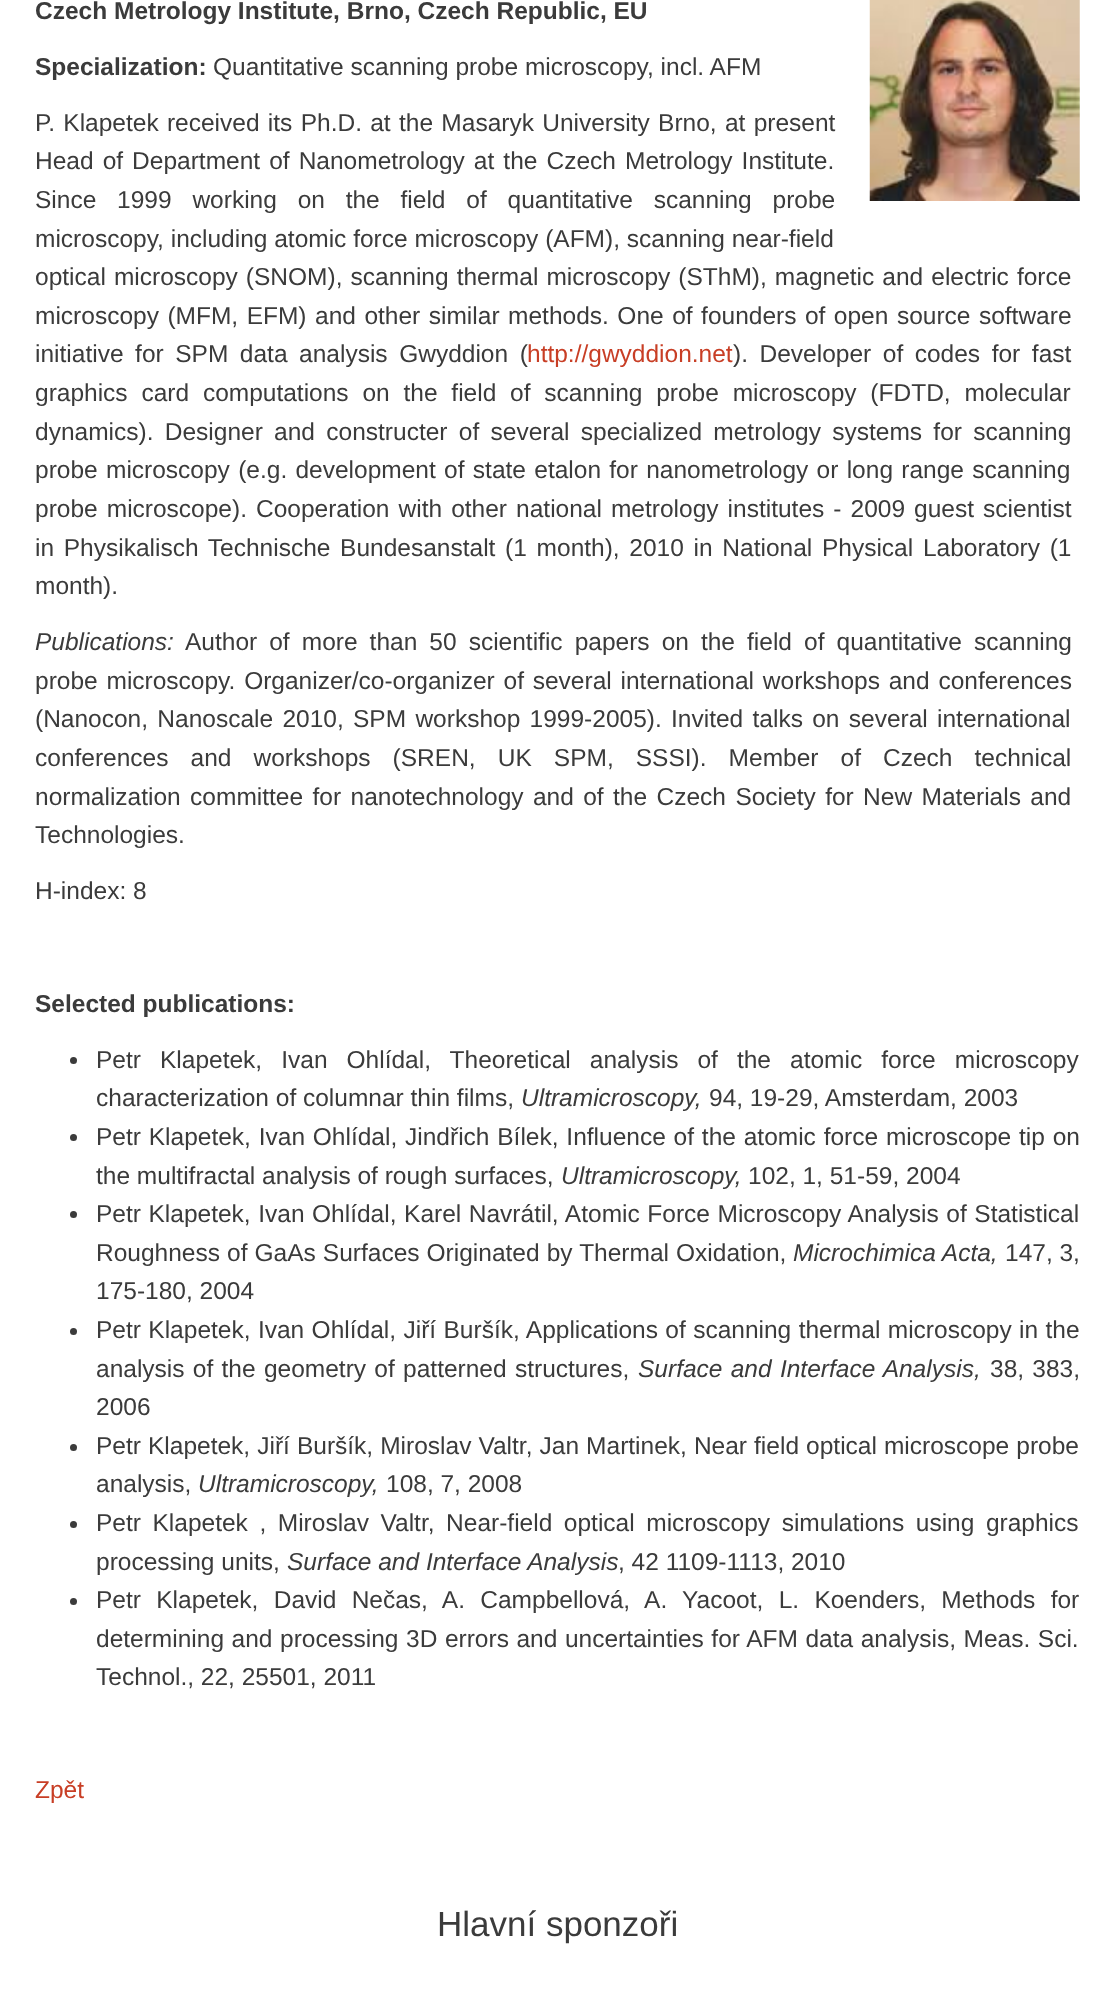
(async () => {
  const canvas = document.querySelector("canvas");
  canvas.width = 1105;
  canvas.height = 2003;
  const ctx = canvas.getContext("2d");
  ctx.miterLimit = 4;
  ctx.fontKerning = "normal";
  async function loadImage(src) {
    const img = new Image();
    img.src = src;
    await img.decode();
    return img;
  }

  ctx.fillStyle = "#ffffff";
  ctx.fillRect(0, 0, 1105, 2003);
  ctx.drawImage(await loadImage("img/1.png"), 869, 0, 211, 201);
  ctx.fillStyle = "#3b3b3b";
  ctx.beginPath();
  ctx.arc(73.5, 1060.5, 3.5, 0, Math.PI * 2);
  ctx.fill();
  ctx.beginPath();
  ctx.arc(73.5, 1137.5, 3.5, 0, Math.PI * 2);
  ctx.fill();
  ctx.beginPath();
  ctx.arc(73.5, 1214.5, 3.5, 0, Math.PI * 2);
  ctx.fill();
  ctx.beginPath();
  ctx.arc(73.5, 1331.5, 3.5, 0, Math.PI * 2);
  ctx.fill();
  ctx.beginPath();
  ctx.arc(73.5, 1447.5, 3.5, 0, Math.PI * 2);
  ctx.fill();
  ctx.beginPath();
  ctx.arc(73.5, 1524.5, 3.5, 0, Math.PI * 2);
  ctx.fill();
  ctx.beginPath();
  ctx.arc(73.5, 1601.5, 3.5, 0, Math.PI * 2);
  ctx.fill();
  ctx.font = "bold 24.5px Liberation Sans";
  ctx.fillText("Czech Metrology Institute, Brno, Czech Republic, EU", 35, 19);
  ctx.fillText("Specialization:", 35, 75);
  ctx.font = "24.5px Liberation Sans";
  ctx.fillText("Quantitative scanning probe microscopy, incl. AFM", 213, 75);
  ctx.wordSpacing = "1.5px";
  ctx.fillText("P. Klapetek received its Ph.D. at the Masaryk University Brno, at present", 35, 131);
  ctx.wordSpacing = "2.25px";
  ctx.fillText("Head of Department of Nanometrology at the Czech Metrology Institute.", 35, 169);
  ctx.wordSpacing = "14px";
  ctx.fillText("Since 1999 working on the field of quantitative scanning probe", 35, 208);
  ctx.wordSpacing = "0px";
  ctx.fillText("microscopy, including atomic force microscopy (AFM), scanning near-field", 35, 247);
  ctx.wordSpacing = "1.25px";
  ctx.fillText("optical microscopy (SNOM), scanning thermal microscopy (SThM), magnetic and electric force", 35, 285);
  ctx.wordSpacing = "1.7px";
  ctx.fillText("microscopy (MFM, EFM) and other similar methods. One of founders of open source software", 35, 324);
  ctx.wordSpacing = "4.75px";
  ctx.fillText("initiative for SPM data analysis Gwyddion (", 35, 362);
  ctx.wordSpacing = "0px";
  ctx.fillStyle = "#c83e25";
  ctx.fillText("http://gwyddion.net", 527, 362);
  ctx.wordSpacing = "4.75px";
  ctx.fillStyle = "#3b3b3b";
  ctx.fillText("). Developer of codes for fast", 733, 362);
  ctx.wordSpacing = "7px";
  ctx.fillText("graphics card computations on the field of scanning probe microscopy (FDTD, molecular", 35, 401);
  ctx.wordSpacing = "4.5px";
  ctx.fillText("dynamics). Designer and constructer of several specialized metrology systems for scanning", 35, 440);
  ctx.wordSpacing = "1.5px";
  ctx.fillText("probe microscopy (e.g. development of state etalon for nanometrology or long range scanning", 35, 478);
  ctx.wordSpacing = "2.25px";
  ctx.fillText("probe microscope). Cooperation with other national metrology institutes - 2009 guest scientist", 35, 517);
  ctx.wordSpacing = "2.9px";
  ctx.fillText("in Physikalisch Technische Bundesanstalt (1 month), 2010 in National Physical Laboratory (1", 35, 556);
  ctx.wordSpacing = "0px";
  ctx.fillText("month).", 35, 594);
  ctx.font = "italic 24.5px Liberation Sans";
  ctx.fillText("Publications:", 35, 650);
  ctx.wordSpacing = "5.25px";
  ctx.font = "24.5px Liberation Sans";
  ctx.fillText("Author of more than 50 scientific papers on the field of quantitative scanning", 185, 650);
  ctx.wordSpacing = "2px";
  ctx.fillText("probe microscopy. Organizer/co-organizer of several international workshops and conferences", 35, 689);
  ctx.wordSpacing = "2.5px";
  ctx.fillText("(Nanocon, Nanoscale 2010, SPM workshop 1999-2005). Invited talks on several international", 35, 727);
  ctx.wordSpacing = "15.25px";
  ctx.fillText("conferences and workshops (SREN, UK SPM, SSSI). Member of Czech technical", 35, 766);
  ctx.wordSpacing = "2.6px";
  ctx.fillText("normalization committee for nanotechnology and of the Czech Society for New Materials and", 35, 805);
  ctx.wordSpacing = "0px";
  ctx.fillText("Technologies.", 35, 843);
  ctx.fillText("H-index: 8", 35, 899);
  ctx.font = "bold 24.5px Liberation Sans";
  ctx.fillText("Selected publications:", 35, 1012);
  ctx.wordSpacing = "12.25px";
  ctx.font = "24.5px Liberation Sans";
  ctx.fillText("Petr Klapetek, Ivan Ohlídal, Theoretical analysis of the atomic force microscopy", 96, 1068);
  ctx.wordSpacing = "0px";
  ctx.fillText("characterization of columnar thin films,", 96, 1106);
  ctx.font = "italic 24.5px Liberation Sans";
  ctx.fillText("Ultramicroscopy,", 521, 1106);
  ctx.font = "24.5px Liberation Sans";
  ctx.fillText("94, 19-29, Amsterdam, 2003", 709, 1106);
  ctx.wordSpacing = "1px";
  ctx.fillText("Petr Klapetek, Ivan Ohlídal, Jindřich Bílek, Influence of the atomic force microscope tip on", 96, 1145);
  ctx.wordSpacing = "0px";
  ctx.fillText("the multifractal analysis of rough surfaces,", 96, 1184);
  ctx.font = "italic 24.5px Liberation Sans";
  ctx.fillText("Ultramicroscopy,", 561, 1184);
  ctx.font = "24.5px Liberation Sans";
  ctx.fillText("102, 1, 51-59, 2004", 748, 1184);
  ctx.wordSpacing = "0.75px";
  ctx.fillText("Petr Klapetek, Ivan Ohlídal, Karel Navrátil, Atomic Force Microscopy Analysis of Statistical", 96, 1222);
  ctx.wordSpacing = "0.25px";
  ctx.fillText("Roughness of GaAs Surfaces Originated by Thermal Oxidation,", 96, 1261);
  ctx.wordSpacing = "0px";
  ctx.font = "italic 24.5px Liberation Sans";
  ctx.fillText("Microchimica Acta,", 793, 1261);
  ctx.font = "24.5px Liberation Sans";
  ctx.fillText("147, 3,", 1005, 1261);
  ctx.fillText("175-180, 2004", 96, 1299);
  ctx.wordSpacing = "0.6px";
  ctx.fillText("Petr Klapetek, Ivan Ohlídal, Jiří Buršík, Applications of scanning thermal microscopy in the", 96, 1338);
  ctx.wordSpacing = "1.5px";
  ctx.fillText("analysis of the geometry of patterned structures,", 96, 1377);
  ctx.font = "italic 24.5px Liberation Sans";
  ctx.fillText("Surface and Interface Analysis,", 638, 1377);
  ctx.font = "24.5px Liberation Sans";
  ctx.fillText("38, 383,", 990, 1377);
  ctx.wordSpacing = "0px";
  ctx.fillText("2006", 96, 1415);
  ctx.wordSpacing = "0.25px";
  ctx.fillText("Petr Klapetek, Jiří Buršík, Miroslav Valtr, Jan Martinek, Near field optical microscope probe", 96, 1454);
  ctx.wordSpacing = "0px";
  ctx.fillText("analysis,", 96, 1492);
  ctx.font = "italic 24.5px Liberation Sans";
  ctx.fillText("Ultramicroscopy,", 198, 1492);
  ctx.font = "24.5px Liberation Sans";
  ctx.fillText("108, 7, 2008", 386, 1492);
  ctx.wordSpacing = "4.75px";
  ctx.fillText("Petr Klapetek , Miroslav Valtr, Near-field optical microscopy simulations using graphics", 96, 1531);
  ctx.wordSpacing = "0px";
  ctx.fillText("processing units,", 96, 1570);
  ctx.font = "italic 24.5px Liberation Sans";
  ctx.fillText("Surface and Interface Analysis", 287, 1570);
  ctx.font = "24.5px Liberation Sans";
  ctx.fillText(", 42 1109-1113, 2010", 618, 1570);
  ctx.wordSpacing = "8.5px";
  ctx.fillText("Petr Klapetek, David Nečas, A. Campbellová, A. Yacoot, L. Koenders, Methods for", 96, 1608);
  ctx.wordSpacing = "0.75px";
  ctx.fillText("determining and processing 3D errors and uncertainties for AFM data analysis, Meas. Sci.", 96, 1647);
  ctx.wordSpacing = "0px";
  ctx.fillText("Technol., 22, 25501, 2011", 96, 1685);
  ctx.fillStyle = "#c83e25";
  ctx.fillText("Zpět", 35, 1798);
  ctx.font = "35px Liberation Sans";
  ctx.fillStyle = "#3b3b3b";
  ctx.fillText("Hlavní sponzoři", 437, 1936);
})();
